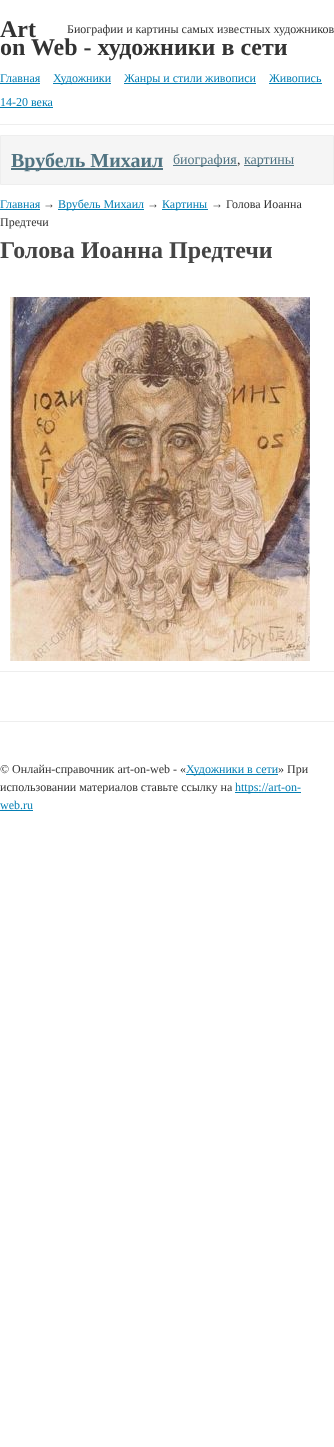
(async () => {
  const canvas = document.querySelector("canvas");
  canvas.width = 334;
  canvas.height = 1447;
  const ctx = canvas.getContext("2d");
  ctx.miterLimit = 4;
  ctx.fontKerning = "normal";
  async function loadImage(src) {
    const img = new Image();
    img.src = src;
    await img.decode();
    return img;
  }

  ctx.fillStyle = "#ffffff";
  ctx.fillRect(0, 0, 334, 1447);
  for (const [x, y, w, h, color] of [
    [0, 124, 334, 1, "#eeeeee"],
    [0, 83, 40, 1, "#047fb4"],
    [53, 83, 58, 1, "#047fb4"],
    [124, 83, 132, 1, "#047fb4"],
    [269, 83, 53, 1, "#047fb4"],
    [0, 107, 53, 1, "#047fb4"],
  ]) {
    ctx.fillStyle = color;
    ctx.fillRect(x, y, w, h);
  }
  ctx.fillStyle = "#f5f5f5";
  ctx.beginPath();
  ctx.rect(0.5, 135.5, 333, 49);
  ctx.fill();
  ctx.strokeStyle = "#eeeeee";
  ctx.stroke();
  for (const [x, y, w, h, color] of [
    [11, 168, 152, 2, "#517482"],
    [173, 165, 64, 1, "#517482"],
    [244, 165, 50, 1, "#517482"],
    [0, 209, 40, 1, "#047fb4"],
    [58, 209, 86, 1, "#047fb4"],
    [162, 209, 46, 1, "#047fb4"],
  ]) {
    ctx.fillStyle = color;
    ctx.fillRect(x, y, w, h);
  }
  ctx.drawImage(await loadImage("img/1.png"), 10, 297, 300, 364);
  for (const [x, y, w, h, color] of [
    [0, 671, 334, 1, "#eeeeee"],
    [0, 721, 334, 1, "#eeeeee"],
    [186, 774, 92, 1, "#047fb4"],
    [235, 792, 66, 1, "#047fb4"],
    [0, 810, 33, 1, "#047fb4"],
  ]) {
    ctx.fillStyle = color;
    ctx.fillRect(x, y, w, h);
  }
  ctx.font = "bold 24px Liberation Serif";
  ctx.fillStyle = "#333333";
  ctx.fillText("Art", 0, 37);
  ctx.fillText("on Web - художники в сети", 0, 55);
  ctx.font = "12px Liberation Serif";
  ctx.fillText("Биографии и картины самых известных художников", 67, 33);
  ctx.fillStyle = "#047fb4";
  for (const [text, x, y] of [
    ["Главная", 0, 82],
    ["Художники", 53, 82],
    ["Жанры и стили живописи", 124, 82],
    ["Живопись", 269, 82],
    ["14-20 века", 0, 106],
  ]) {
    ctx.fillText(text, x, y);
  }
  ctx.font = "bold 20px Liberation Serif";
  ctx.fillStyle = "#517482";
  ctx.fillText("Врубель Михаил", 11, 167);
  ctx.font = "14px Liberation Serif";
  ctx.fillText("биография", 173, 164);
  ctx.fillStyle = "#333333";
  ctx.fillText(",", 237, 164);
  ctx.fillStyle = "#517482";
  ctx.fillText("картины", 244, 164);
  ctx.font = "12px Liberation Serif";
  ctx.fillStyle = "#047fb4";
  ctx.fillText("Главная", 0, 208);
  ctx.fillStyle = "#333333";
  ctx.fillText("→", 43, 208);
  ctx.fillStyle = "#047fb4";
  ctx.fillText("Врубель Михаил", 58, 208);
  ctx.fillStyle = "#333333";
  ctx.fillText("→", 147, 208);
  ctx.fillStyle = "#047fb4";
  ctx.fillText("Картины", 162, 208);
  ctx.fillStyle = "#333333";
  ctx.fillText("→ Голова Иоанна", 211, 208);
  ctx.fillText("Предтечи", 0, 226);
  ctx.font = "bold 24px Liberation Serif";
  ctx.fillStyle = "#444444";
  ctx.fillText("Голова Иоанна Предтечи", 0, 258);
  ctx.font = "12px Liberation Serif";
  ctx.fillStyle = "#333333";
  ctx.fillText("© Онлайн-справочник art-on-web - «", 0, 773);
  ctx.fillStyle = "#047fb4";
  ctx.fillText("Художники в сети", 186, 773);
  ctx.fillStyle = "#333333";
  ctx.fillText("» При", 278, 773);
  ctx.fillText("использовании материалов ставьте ссылку на", 0, 791);
  ctx.fillStyle = "#047fb4";
  ctx.fillText("https://art-on-", 235, 791);
  ctx.fillText("web.ru", 0, 809);
})();
